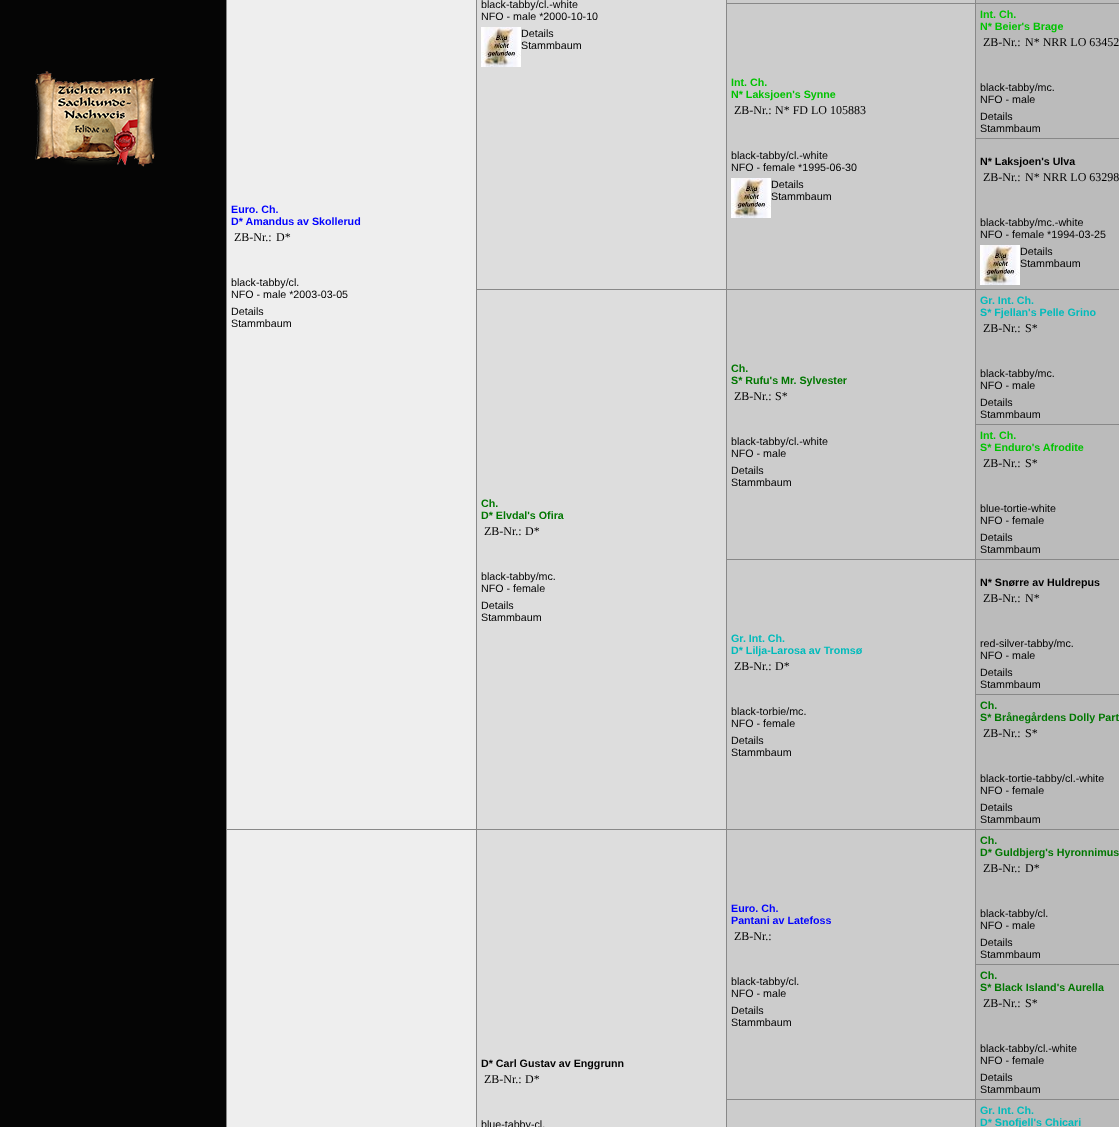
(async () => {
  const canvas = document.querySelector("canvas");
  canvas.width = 1119;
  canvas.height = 1127;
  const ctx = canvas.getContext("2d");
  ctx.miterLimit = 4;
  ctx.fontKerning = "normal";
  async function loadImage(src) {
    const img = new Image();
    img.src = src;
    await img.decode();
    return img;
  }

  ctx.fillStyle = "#050505";
  ctx.fillRect(0, 0, 1119, 1127);
  ctx.drawImage(await loadImage("img/1.png"), 35, 71, 120, 96);
  ctx.fillStyle = "#888888";
  ctx.fillRect(226, 0, 1, 1127);
  ctx.fillStyle = "#dddddd";
  ctx.fillRect(477, 0, 249, 289);
  ctx.drawImage(await loadImage("img/2.png"), 481, 27, 40, 40);
  for (const [x, y, w, h, color] of [
    [726, 0, 250, 3, "#cccccc"],
    [227, 0, 249, 829, "#eeeeee"],
    [976, 0, 143, 3, "#bbbbbb"],
    [975, 3, 144, 1, "#888888"],
    [975, 138, 144, 1, "#888888"],
    [975, 289, 144, 1, "#888888"],
    [975, 424, 144, 1, "#888888"],
    [975, 559, 144, 1, "#888888"],
    [975, 694, 144, 1, "#888888"],
    [975, 829, 144, 1, "#888888"],
    [975, 964, 144, 1, "#888888"],
    [975, 1099, 144, 1, "#888888"],
    [975, 1099, 1, 28, "#888888"],
    [726, 1099, 250, 1, "#888888"],
    [975, 964, 1, 136, "#888888"],
    [975, 829, 1, 136, "#888888"],
    [726, 829, 250, 1, "#888888"],
    [975, 694, 1, 136, "#888888"],
    [975, 559, 1, 136, "#888888"],
    [726, 559, 250, 1, "#888888"],
    [975, 424, 1, 136, "#888888"],
    [975, 289, 1, 136, "#888888"],
    [726, 289, 250, 1, "#888888"],
    [975, 138, 1, 152, "#888888"],
    [975, 3, 1, 136, "#888888"],
    [726, 3, 250, 1, "#888888"],
    [975, 0, 1, 4, "#888888"],
    [727, 4, 248, 285, "#cccccc"],
    [726, 1099, 1, 28, "#888888"],
    [726, 829, 1, 271, "#888888"],
    [476, 829, 251, 1, "#888888"],
    [726, 559, 1, 271, "#888888"],
    [726, 289, 1, 271, "#888888"],
    [476, 289, 251, 1, "#888888"],
    [726, 0, 1, 290, "#888888"],
  ]) {
    ctx.fillStyle = color;
    ctx.fillRect(x, y, w, h);
  }
  ctx.drawImage(await loadImage("img/2.png"), 731, 178, 40, 40);
  ctx.fillStyle = "#bbbbbb";
  ctx.fillRect(976, 4, 143, 134);
  ctx.fillRect(976, 139, 143, 150);
  ctx.drawImage(await loadImage("img/2.png"), 980, 245, 40, 40);
  for (const [x, y, w, h, color] of [
    [727, 290, 248, 269, "#cccccc"],
    [976, 290, 143, 134, "#bbbbbb"],
    [477, 290, 249, 539, "#dddddd"],
    [476, 829, 1, 298, "#888888"],
    [226, 829, 251, 1, "#888888"],
    [476, 0, 1, 830, "#888888"],
    [976, 425, 143, 134, "#bbbbbb"],
    [727, 560, 248, 269, "#cccccc"],
    [976, 560, 143, 134, "#bbbbbb"],
    [976, 695, 143, 134, "#bbbbbb"],
    [227, 830, 249, 297, "#eeeeee"],
    [727, 830, 248, 269, "#cccccc"],
    [976, 830, 143, 134, "#bbbbbb"],
    [477, 830, 249, 297, "#dddddd"],
    [976, 965, 143, 134, "#bbbbbb"],
    [727, 1100, 248, 27, "#cccccc"],
    [976, 1100, 143, 27, "#bbbbbb"],
  ]) {
    ctx.fillStyle = color;
    ctx.fillRect(x, y, w, h);
  }
  ctx.font = "10.7px Liberation Sans";
  ctx.fillStyle = "#000000";
  for (const [text, x, y] of [
    ["black-tabby/cl.-white", 481, 8],
    ["NFO - male *2000-10-10", 481, 20],
    ["Details", 521, 37],
    ["Stammbaum", 521, 49],
  ]) {
    ctx.fillText(text, x, y);
  }
  ctx.font = "bold 10.7px Liberation Sans";
  ctx.fillStyle = "#0000ff";
  ctx.fillText("Euro. Ch.", 231, 213);
  ctx.fillText("D* Amandus av Skollerud", 231, 225);
  ctx.font = "12px Liberation Serif";
  ctx.fillStyle = "#000000";
  ctx.fillText("ZB-Nr.:", 234, 241);
  ctx.fillText("D*", 276, 241);
  ctx.font = "10.7px Liberation Sans";
  for (const [text, x, y] of [
    ["black-tabby/cl.", 231, 286],
    ["NFO - male *2003-03-05", 231, 298],
    ["Details", 231, 315],
    ["Stammbaum", 231, 327],
  ]) {
    ctx.fillText(text, x, y);
  }
  ctx.font = "bold 10.7px Liberation Sans";
  ctx.fillStyle = "#00c300";
  ctx.fillText("Int. Ch.", 731, 86);
  ctx.fillText("N* Laksjoen's Synne", 731, 98);
  ctx.font = "12px Liberation Serif";
  ctx.fillStyle = "#000000";
  ctx.fillText("ZB-Nr.:", 734, 114);
  ctx.fillText("N* FD LO 105883", 775, 114);
  ctx.font = "10.7px Liberation Sans";
  for (const [text, x, y] of [
    ["black-tabby/cl.-white", 731, 159],
    ["NFO - female *1995-06-30", 731, 171],
    ["Details", 771, 188],
    ["Stammbaum", 771, 200],
  ]) {
    ctx.fillText(text, x, y);
  }
  ctx.font = "bold 10.7px Liberation Sans";
  ctx.fillStyle = "#00c300";
  ctx.fillText("Int. Ch.", 980, 18);
  ctx.fillText("N* Beier's Brage", 980, 30);
  ctx.font = "12px Liberation Serif";
  ctx.fillStyle = "#000000";
  ctx.fillText("ZB-Nr.:", 983, 46);
  ctx.fillText("N* NRR LO 63452", 1025, 46);
  ctx.font = "10.7px Liberation Sans";
  for (const [text, x, y] of [
    ["black-tabby/mc.", 980, 91],
    ["NFO - male", 980, 103],
    ["Details", 980, 120],
    ["Stammbaum", 980, 132],
  ]) {
    ctx.fillText(text, x, y);
  }
  ctx.font = "bold 10.7px Liberation Sans";
  ctx.fillText("N* Laksjoen's Ulva", 980, 165);
  ctx.font = "12px Liberation Serif";
  ctx.fillText("ZB-Nr.:", 983, 181);
  ctx.fillText("N* NRR LO 63298", 1025, 181);
  ctx.font = "10.7px Liberation Sans";
  for (const [text, x, y] of [
    ["black-tabby/mc.-white", 980, 226],
    ["NFO - female *1994-03-25", 980, 238],
    ["Details", 1020, 255],
    ["Stammbaum", 1020, 267],
  ]) {
    ctx.fillText(text, x, y);
  }
  ctx.font = "bold 10.7px Liberation Sans";
  ctx.fillStyle = "#007700";
  ctx.fillText("Ch.", 731, 372);
  ctx.fillText("S* Rufu's Mr. Sylvester", 731, 384);
  ctx.font = "12px Liberation Serif";
  ctx.fillStyle = "#000000";
  ctx.fillText("ZB-Nr.:", 734, 400);
  ctx.fillText("S*", 775, 400);
  ctx.font = "10.7px Liberation Sans";
  for (const [text, x, y] of [
    ["black-tabby/cl.-white", 731, 445],
    ["NFO - male", 731, 457],
    ["Details", 731, 474],
    ["Stammbaum", 731, 486],
  ]) {
    ctx.fillText(text, x, y);
  }
  ctx.font = "bold 10.7px Liberation Sans";
  ctx.fillStyle = "#00bbbb";
  ctx.fillText("Gr. Int. Ch.", 980, 304);
  ctx.fillText("S* Fjellan's Pelle Grino", 980, 316);
  ctx.font = "12px Liberation Serif";
  ctx.fillStyle = "#000000";
  ctx.fillText("ZB-Nr.:", 983, 332);
  ctx.fillText("S*", 1025, 332);
  ctx.font = "10.7px Liberation Sans";
  for (const [text, x, y] of [
    ["black-tabby/mc.", 980, 377],
    ["NFO - male", 980, 389],
    ["Details", 980, 406],
    ["Stammbaum", 980, 418],
  ]) {
    ctx.fillText(text, x, y);
  }
  ctx.font = "bold 10.7px Liberation Sans";
  ctx.fillStyle = "#007700";
  ctx.fillText("Ch.", 481, 507);
  ctx.fillText("D* Elvdal's Ofira", 481, 519);
  ctx.font = "12px Liberation Serif";
  ctx.fillStyle = "#000000";
  ctx.fillText("ZB-Nr.:", 484, 535);
  ctx.fillText("D*", 525, 535);
  ctx.font = "10.7px Liberation Sans";
  for (const [text, x, y] of [
    ["black-tabby/mc.", 481, 580],
    ["NFO - female", 481, 592],
    ["Details", 481, 609],
    ["Stammbaum", 481, 621],
  ]) {
    ctx.fillText(text, x, y);
  }
  ctx.font = "bold 10.7px Liberation Sans";
  ctx.fillStyle = "#00c300";
  ctx.fillText("Int. Ch.", 980, 439);
  ctx.fillText("S* Enduro's Afrodite", 980, 451);
  ctx.font = "12px Liberation Serif";
  ctx.fillStyle = "#000000";
  ctx.fillText("ZB-Nr.:", 983, 467);
  ctx.fillText("S*", 1025, 467);
  ctx.font = "10.7px Liberation Sans";
  for (const [text, x, y] of [
    ["blue-tortie-white", 980, 512],
    ["NFO - female", 980, 524],
    ["Details", 980, 541],
    ["Stammbaum", 980, 553],
  ]) {
    ctx.fillText(text, x, y);
  }
  ctx.font = "bold 10.7px Liberation Sans";
  ctx.fillStyle = "#00bbbb";
  ctx.fillText("Gr. Int. Ch.", 731, 642);
  ctx.fillText("D* Lilja-Larosa av Tromsø", 731, 654);
  ctx.font = "12px Liberation Serif";
  ctx.fillStyle = "#000000";
  ctx.fillText("ZB-Nr.:", 734, 670);
  ctx.fillText("D*", 775, 670);
  ctx.font = "10.7px Liberation Sans";
  for (const [text, x, y] of [
    ["black-torbie/mc.", 731, 715],
    ["NFO - female", 731, 727],
    ["Details", 731, 744],
    ["Stammbaum", 731, 756],
  ]) {
    ctx.fillText(text, x, y);
  }
  ctx.font = "bold 10.7px Liberation Sans";
  ctx.fillText("N* Snørre av Huldrepus", 980, 586);
  ctx.font = "12px Liberation Serif";
  ctx.fillText("ZB-Nr.:", 983, 602);
  ctx.fillText("N*", 1025, 602);
  ctx.font = "10.7px Liberation Sans";
  for (const [text, x, y] of [
    ["red-silver-tabby/mc.", 980, 647],
    ["NFO - male", 980, 659],
    ["Details", 980, 676],
    ["Stammbaum", 980, 688],
  ]) {
    ctx.fillText(text, x, y);
  }
  ctx.font = "bold 10.7px Liberation Sans";
  ctx.fillStyle = "#007700";
  ctx.fillText("Ch.", 980, 709);
  ctx.fillText("S* Brånegårdens Dolly Part", 980, 721);
  ctx.font = "12px Liberation Serif";
  ctx.fillStyle = "#000000";
  ctx.fillText("ZB-Nr.:", 983, 737);
  ctx.fillText("S*", 1025, 737);
  ctx.font = "10.7px Liberation Sans";
  for (const [text, x, y] of [
    ["black-tortie-tabby/cl.-white", 980, 782],
    ["NFO - female", 980, 794],
    ["Details", 980, 811],
    ["Stammbaum", 980, 823],
  ]) {
    ctx.fillText(text, x, y);
  }
  ctx.font = "bold 10.7px Liberation Sans";
  ctx.fillStyle = "#0000ff";
  ctx.fillText("Euro. Ch.", 731, 912);
  ctx.fillText("Pantani av Latefoss", 731, 924);
  ctx.font = "12px Liberation Serif";
  ctx.fillStyle = "#000000";
  ctx.fillText("ZB-Nr.:", 734, 940);
  ctx.font = "10.7px Liberation Sans";
  for (const [text, x, y] of [
    ["black-tabby/cl.", 731, 985],
    ["NFO - male", 731, 997],
    ["Details", 731, 1014],
    ["Stammbaum", 731, 1026],
  ]) {
    ctx.fillText(text, x, y);
  }
  ctx.font = "bold 10.7px Liberation Sans";
  ctx.fillStyle = "#007700";
  ctx.fillText("Ch.", 980, 844);
  ctx.fillText("D* Guldbjerg's Hyronnimus", 980, 856);
  ctx.font = "12px Liberation Serif";
  ctx.fillStyle = "#000000";
  ctx.fillText("ZB-Nr.:", 983, 872);
  ctx.fillText("D*", 1025, 872);
  ctx.font = "10.7px Liberation Sans";
  for (const [text, x, y] of [
    ["black-tabby/cl.", 980, 917],
    ["NFO - male", 980, 929],
    ["Details", 980, 946],
    ["Stammbaum", 980, 958],
  ]) {
    ctx.fillText(text, x, y);
  }
  ctx.font = "bold 10.7px Liberation Sans";
  ctx.fillText("D* Carl Gustav av Enggrunn", 481, 1067);
  ctx.font = "12px Liberation Serif";
  ctx.fillText("ZB-Nr.:", 484, 1083);
  ctx.fillText("D*", 525, 1083);
  ctx.font = "10.7px Liberation Sans";
  ctx.fillText("blue-tabby-cl.", 481, 1128);
  ctx.font = "bold 10.7px Liberation Sans";
  ctx.fillStyle = "#007700";
  ctx.fillText("Ch.", 980, 979);
  ctx.fillText("S* Black Island's Aurella", 980, 991);
  ctx.font = "12px Liberation Serif";
  ctx.fillStyle = "#000000";
  ctx.fillText("ZB-Nr.:", 983, 1007);
  ctx.fillText("S*", 1025, 1007);
  ctx.font = "10.7px Liberation Sans";
  for (const [text, x, y] of [
    ["black-tabby/cl.-white", 980, 1052],
    ["NFO - female", 980, 1064],
    ["Details", 980, 1081],
    ["Stammbaum", 980, 1093],
  ]) {
    ctx.fillText(text, x, y);
  }
  ctx.font = "bold 10.7px Liberation Sans";
  ctx.fillStyle = "#00bbbb";
  ctx.fillText("Gr. Int. Ch.", 980, 1114);
  ctx.fillText("D* Snofjell's Chicari", 980, 1126);
})();
